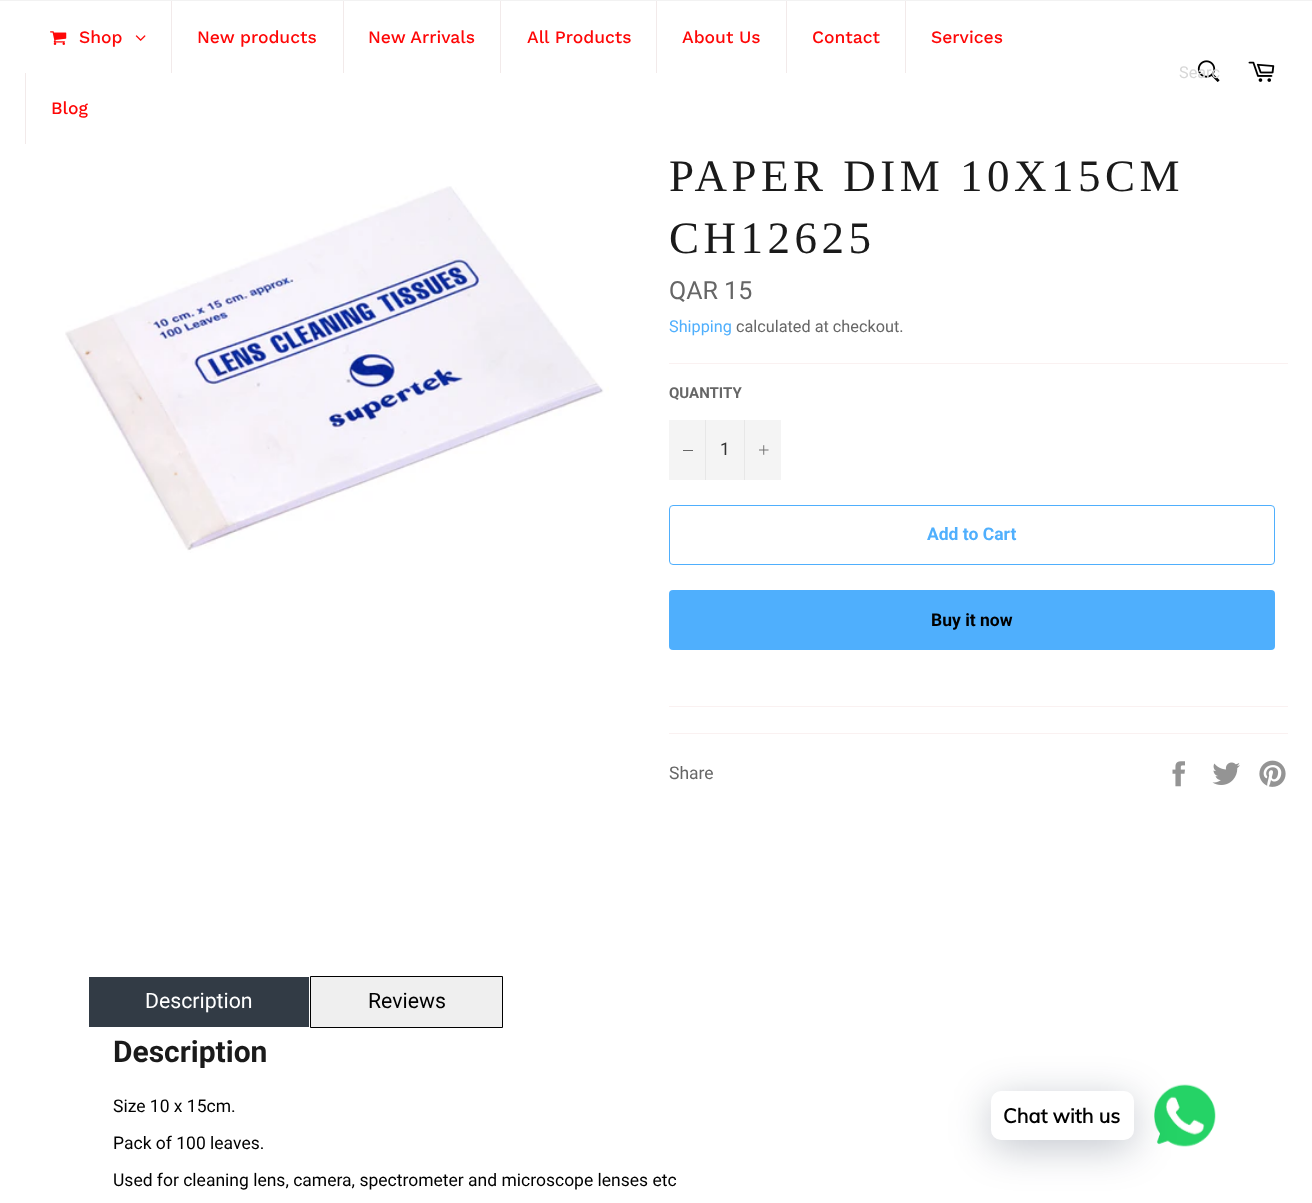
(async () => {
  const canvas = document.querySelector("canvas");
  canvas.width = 1312;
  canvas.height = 1203;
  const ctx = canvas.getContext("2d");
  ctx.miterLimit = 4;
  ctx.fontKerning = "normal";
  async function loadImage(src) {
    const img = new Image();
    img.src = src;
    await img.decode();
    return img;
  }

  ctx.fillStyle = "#ffffff";
  ctx.fillRect(0, 0, 1312, 1203);
  ctx.fillStyle = "#f2f2f2";
  ctx.fillRect(0, 0, 1312, 1);
  ctx.drawImage(await loadImage("img/1.png"), 50, 31, 17, 14);
  ctx.drawImage(await loadImage("img/2.png"), 135, 35, 11, 6);
  for (const [x, y, w, h, color] of [
    [171, 1, 1, 72, "#f2eaea"],
    [343, 1, 1, 72, "#f2eaea"],
    [500, 1, 1, 72, "#f2eaea"],
    [656, 1, 1, 72, "#f2eaea"],
    [786, 1, 1, 72, "#f2eaea"],
    [905, 1, 1, 72, "#f2eaea"],
    [25, 73, 1, 71, "#f2eaea"],
  ]) {
    ctx.fillStyle = color;
    ctx.fillRect(x, y, w, h);
  }
  ctx.drawImage(await loadImage("img/3.png"), 1197, 60, 23, 22);
  ctx.drawImage(await loadImage("img/4.png"), 1248, 61, 27, 21);
  ctx.drawImage(await loadImage("img/5.png"), 65, 186, 544, 367);
  for (const [x, y, w, h, color] of [
    [669, 363, 619, 1, "#faf1f1"],
    [669, 420, 112, 60, "#f4f4f4"],
    [705, 420, 1, 60, "#e7e7e7"],
    [683, 450, 10, 1, "#666666"],
    [744, 420, 1, 60, "#e7e7e7"],
  ]) {
    ctx.fillStyle = color;
    ctx.fillRect(x, y, w, h);
  }
  ctx.drawImage(await loadImage("img/6.png"), 759, 445, 10, 10);
  ctx.beginPath();
  ctx.roundRect(669.5, 505.5, 605, 59, 3.5);
  ctx.strokeStyle = "#4faffd";
  ctx.stroke();
  ctx.fillStyle = "#4faffd";
  ctx.beginPath();
  ctx.roundRect(669, 590, 606, 60, 4);
  ctx.fill();
  ctx.fillStyle = "#faf1f1";
  ctx.fillRect(669, 706, 619, 1);
  ctx.fillRect(669, 733, 619, 1);
  ctx.drawImage(await loadImage("img/7.png"), 1172, 761, 13, 26);
  ctx.drawImage(await loadImage("img/8.png"), 1212, 762, 28, 23);
  ctx.drawImage(await loadImage("img/9.png"), 1259, 760, 27, 27);
  ctx.fillStyle = "#323b45";
  ctx.fillRect(89, 977, 220, 50);
  ctx.fillStyle = "#efefef";
  ctx.beginPath();
  ctx.rect(310.5, 976.5, 192, 51);
  ctx.fill();
  ctx.strokeStyle = "#000000";
  ctx.stroke();
  ctx.drawImage(await loadImage("img/10.png"), 1154, 1084, 62, 63);
  ctx.fillStyle = "rgba(0, 18, 46, 0.24)";
  ctx.filter = "blur(20px)";
  ctx.beginPath();
  ctx.roundRect(991, 1099, 143, 49, 10);
  ctx.fill();
  ctx.filter = "none";
  ctx.fillStyle = "#ffffff";
  ctx.beginPath();
  ctx.roundRect(991, 1091, 143, 49, 10);
  ctx.fill();
  ctx.font = "500 17.5px Work Sans";
  ctx.fillStyle = "#fe0707";
  for (const [text, x, y] of [
    ["Shop", 79, 43],
    ["New products", 197, 43],
    ["New Arrivals", 368, 43],
    ["All Products", 527, 43],
    ["About Us", 682, 43],
    ["Contact", 812, 43],
    ["Services", 931, 43],
    ["Blog", 51, 114],
  ]) {
    ctx.fillText(text, x, y);
  }
  ctx.font = "16.25px Roboto";
  ctx.fillStyle = "#d7d7d7";
  ctx.fillText("Searc", 1179, 78);
  ctx.letterSpacing = "4.5px";
  ctx.font = "45px Liberation Serif";
  ctx.fillStyle = "#1a1a1a";
  ctx.fillText("PAPER DIM 10X15CM", 669, 191);
  ctx.fillText("CH12625", 669, 253);
  ctx.letterSpacing = "0px";
  ctx.font = "25px Roboto";
  ctx.fillStyle = "#666666";
  ctx.fillText("QAR 15", 669, 299);
  ctx.font = "16.25px Roboto";
  ctx.fillStyle = "#4faffd";
  ctx.fillText("Shipping", 669, 332);
  ctx.fillStyle = "#666666";
  ctx.fillText("calculated at checkout.", 736, 332);
  ctx.font = "bold 15px Roboto";
  ctx.fillText("QUANTITY", 669, 398);
  ctx.font = "17.5px Roboto";
  ctx.fillStyle = "#333333";
  ctx.fillText("1", 720, 455);
  ctx.font = "bold 17.5px Roboto";
  ctx.fillStyle = "#4faffd";
  ctx.fillText("Add to Cart", 927, 540);
  ctx.fillStyle = "#000000";
  ctx.fillText("Buy it now", 931, 626);
  ctx.font = "17.5px Roboto";
  ctx.fillStyle = "#666666";
  ctx.fillText("Share", 669, 779);
  ctx.font = "21.25px Roboto";
  ctx.fillStyle = "#ffffff";
  ctx.fillText("Description", 145, 1008);
  ctx.fillStyle = "#000000";
  ctx.fillText("Reviews", 368, 1008);
  ctx.font = "bold 30px Roboto";
  ctx.fillStyle = "#1a1a1a";
  ctx.fillText("Description", 113, 1062);
  ctx.font = "17.5px Roboto";
  ctx.fillStyle = "#000000";
  for (const [text, x, y] of [
    ["Size 10 x 15cm.", 113, 1112],
    ["Pack of 100 leaves.", 113, 1149],
    ["Used for cleaning lens, camera, spectrometer and microscope lenses etc", 113, 1186],
  ]) {
    ctx.fillText(text, x, y);
  }
  ctx.font = "bold 20px Muli";
  ctx.fillText("Chat with us", 1003, 1123);
})();
